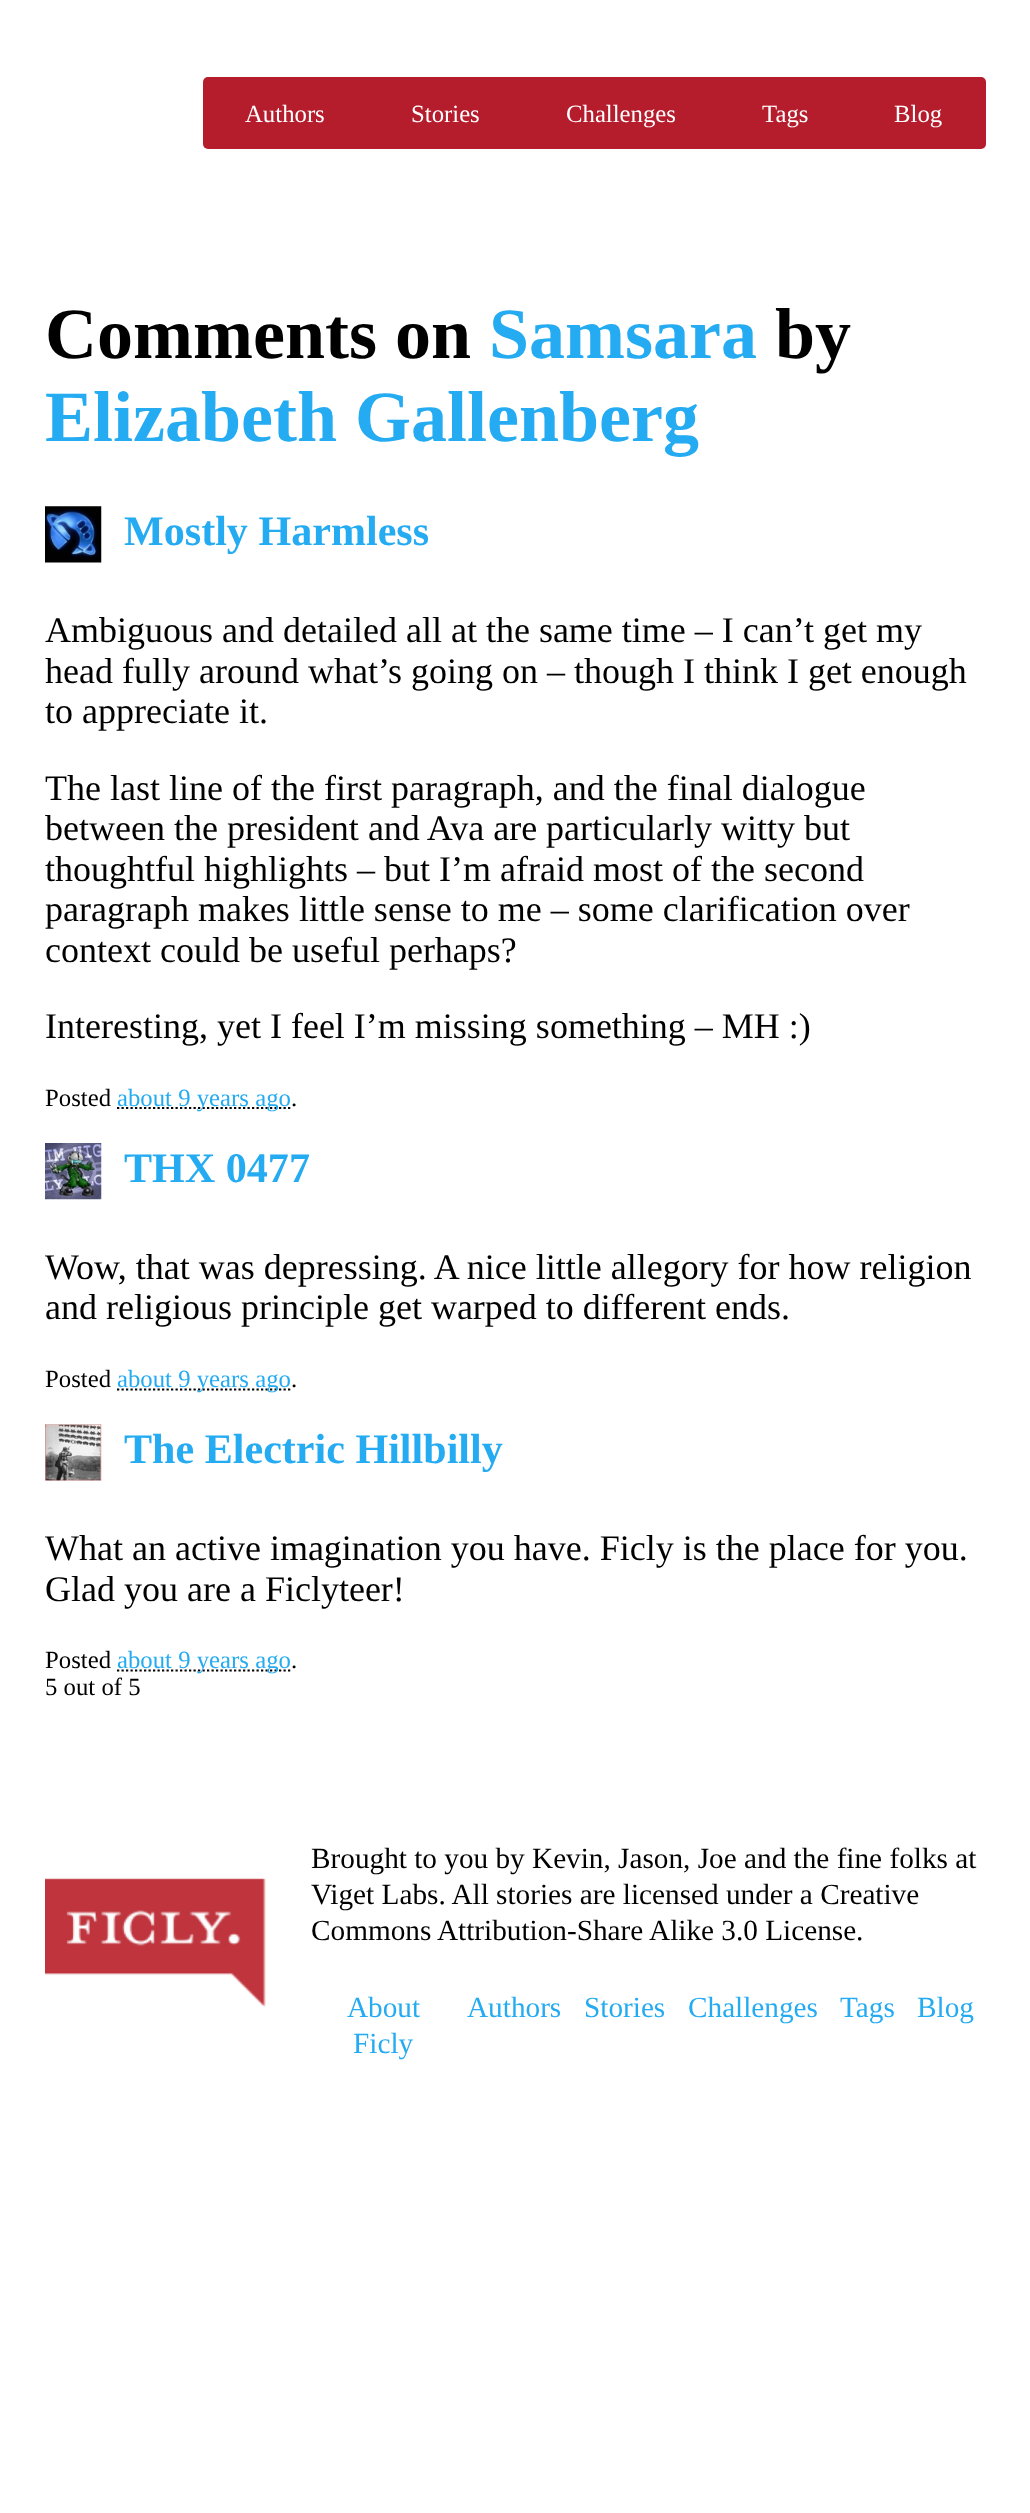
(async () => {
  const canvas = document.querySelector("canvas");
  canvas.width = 1030;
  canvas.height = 2513;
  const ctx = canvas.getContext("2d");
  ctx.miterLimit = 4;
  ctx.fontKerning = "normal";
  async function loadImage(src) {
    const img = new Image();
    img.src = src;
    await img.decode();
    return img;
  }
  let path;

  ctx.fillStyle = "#ffffff";
  ctx.fillRect(0, 0, 1030, 2513);
  ctx.fillStyle = "#b51c2c";
  ctx.beginPath();
  ctx.roundRect(203, 77, 166, 72, [5, 0, 0, 5]);
  ctx.fill();
  ctx.fillRect(369, 77, 482, 72);
  ctx.beginPath();
  ctx.roundRect(851, 77, 135, 72, [0, 5, 5, 0]);
  ctx.fill();
  ctx.drawImage(await loadImage("img/1.png"), 45, 506, 57, 57);
  path = new Path2D("M117 1108H291");
  ctx.strokeStyle = "#000000";
  ctx.lineWidth = 2.2;
  ctx.setLineDash([2.25, 2.25]);
  ctx.stroke(path);
  ctx.drawImage(await loadImage("img/2.png"), 45, 1143, 57, 57);
  path = new Path2D("M117 1389.5H291");
  ctx.stroke(path);
  ctx.drawImage(await loadImage("img/3.png"), 45, 1424, 57, 57);
  path = new Path2D("M117 1670.5H291");
  ctx.stroke(path);
  ctx.drawImage(await loadImage("img/4.png"), 45, 1878, 221, 129);
  ctx.font = "24.75px Liberation Serif";
  ctx.fillStyle = "#ffffff";
  for (const [text, x, y] of [
    ["Authors", 245, 122],
    ["Stories", 411, 122],
    ["Challenges", 566, 122],
    ["Tags", 762, 122],
    ["Blog", 894, 122],
  ]) {
    ctx.fillText(text, x, y);
  }
  ctx.font = "bold 72px Liberation Serif";
  ctx.fillStyle = "#000000";
  ctx.fillText("Comments on", 45, 358);
  ctx.fillStyle = "#25abf1";
  ctx.fillText("Samsara", 489, 358);
  ctx.fillStyle = "#000000";
  ctx.fillText("by", 775, 358);
  ctx.fillStyle = "#25abf1";
  ctx.fillText("Elizabeth Gallenberg", 45, 441);
  ctx.font = "bold 42.1px Liberation Serif";
  ctx.fillText("Mostly Harmless", 124, 545);
  ctx.font = "36px Liberation Serif";
  ctx.fillStyle = "#000000";
  for (const [text, x, y] of [
    ["Ambiguous and detailed all at the same time – I can’t get my", 45, 642],
    ["head fully around what’s going on – though I think I get enough", 45, 683],
    ["to appreciate it.", 45, 723],
    ["The last line of the first paragraph, and the final dialogue", 45, 800],
    ["between the president and Ava are particularly witty but", 45, 840],
    ["thoughtful highlights – but I’m afraid most of the second", 45, 881],
    ["paragraph makes little sense to me – some clarification over", 45, 921],
    ["context could be useful perhaps?", 45, 962],
    ["Interesting, yet I feel I’m missing something – MH :)", 45, 1038],
  ]) {
    ctx.fillText(text, x, y);
  }
  ctx.font = "24.75px Liberation Serif";
  ctx.fillText("Posted", 45, 1106);
  ctx.fillStyle = "#25abf1";
  ctx.fillText("about 9 years ago", 117, 1106);
  ctx.fillStyle = "#000000";
  ctx.fillText(".", 291, 1106);
  ctx.font = "bold 42.1px Liberation Serif";
  ctx.fillStyle = "#25abf1";
  ctx.fillText("THX 0477", 124, 1182);
  ctx.font = "36px Liberation Serif";
  ctx.fillStyle = "#000000";
  ctx.fillText("Wow, that was depressing. A nice little allegory for how religion", 45, 1279);
  ctx.fillText("and religious principle get warped to different ends.", 45, 1319);
  ctx.font = "24.75px Liberation Serif";
  ctx.fillText("Posted", 45, 1387);
  ctx.fillStyle = "#25abf1";
  ctx.fillText("about 9 years ago", 117, 1387);
  ctx.fillStyle = "#000000";
  ctx.fillText(".", 291, 1387);
  ctx.font = "bold 42.1px Liberation Serif";
  ctx.fillStyle = "#25abf1";
  ctx.fillText("The Electric Hillbilly", 124, 1463);
  ctx.font = "36px Liberation Serif";
  ctx.fillStyle = "#000000";
  ctx.fillText("What an active imagination you have. Ficly is the place for you.", 45, 1560);
  ctx.fillText("Glad you are a Ficlyteer!", 45, 1601);
  ctx.font = "24.75px Liberation Serif";
  ctx.fillText("Posted", 45, 1668);
  ctx.fillStyle = "#25abf1";
  ctx.fillText("about 9 years ago", 117, 1668);
  ctx.fillStyle = "#000000";
  ctx.fillText(".", 291, 1668);
  ctx.fillText("5 out of 5", 45, 1695);
  ctx.font = "29.25px Liberation Serif";
  for (const [text, x, y] of [
    ["Brought to you by Kevin, Jason, Joe and the fine folks at", 311, 1868],
    ["Viget Labs. All stories are licensed under a Creative", 311, 1904],
    ["Commons Attribution-Share Alike 3.0 License.", 311, 1940],
  ]) {
    ctx.fillText(text, x, y);
  }
  ctx.fillStyle = "#25abf1";
  for (const [text, x, y] of [
    ["About", 347, 2017],
    ["Ficly", 353, 2053],
    ["Authors", 467, 2017],
    ["Stories", 584, 2017],
    ["Challenges", 688, 2017],
    ["Tags", 840, 2017],
    ["Blog", 917, 2017],
  ]) {
    ctx.fillText(text, x, y);
  }
})();
